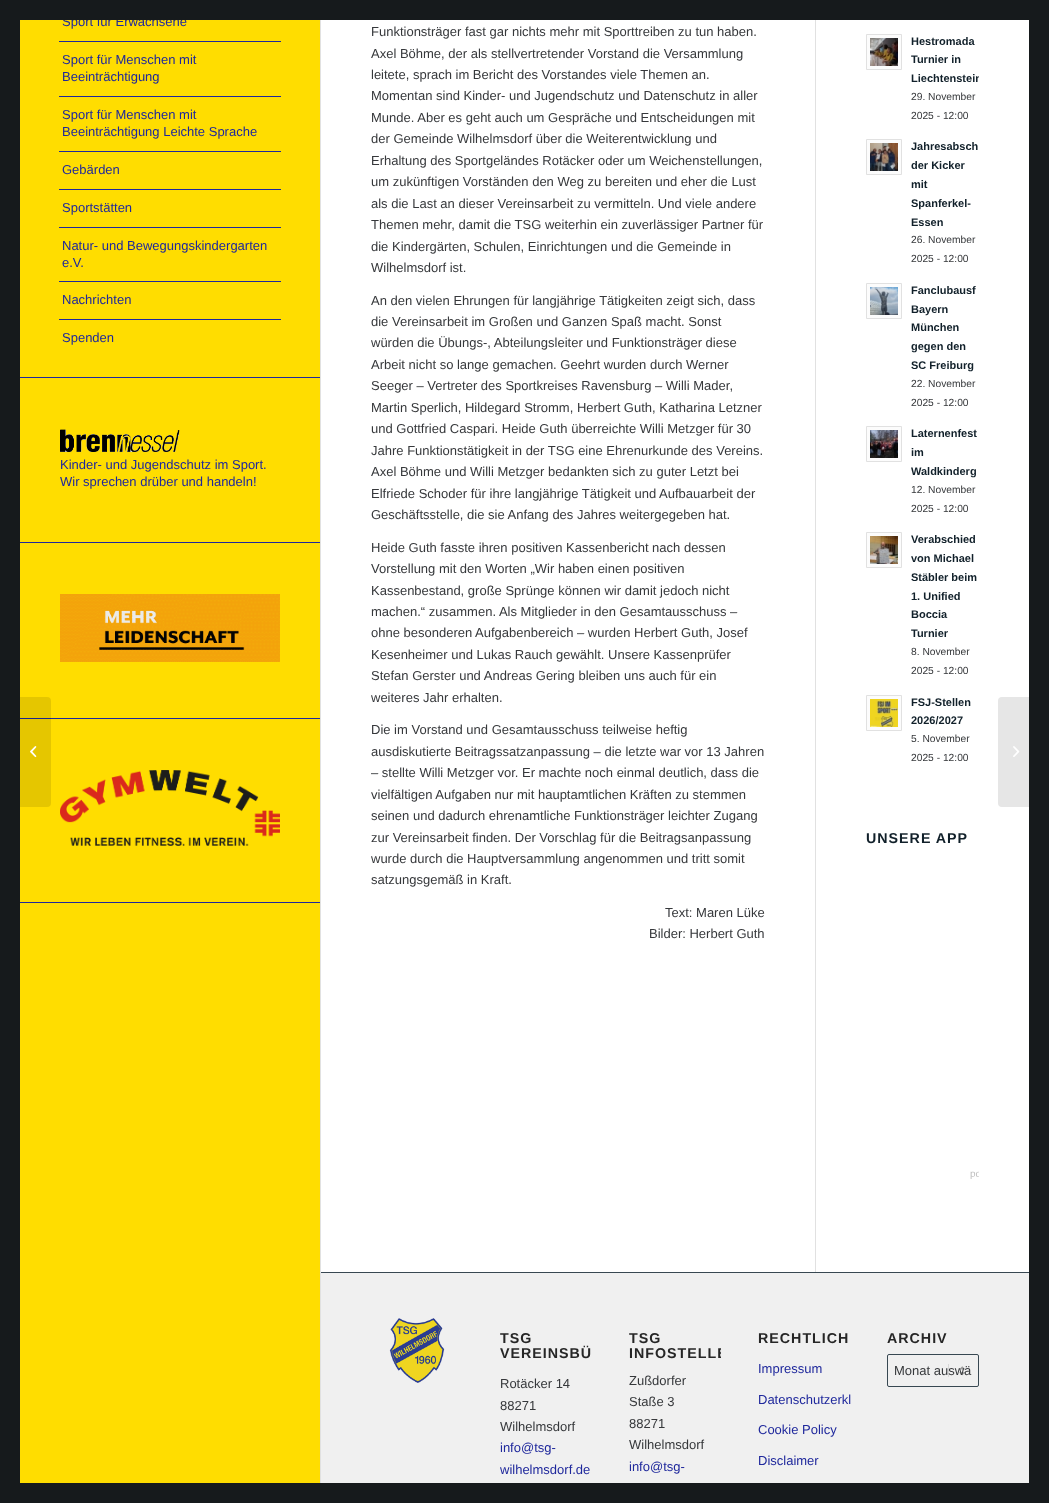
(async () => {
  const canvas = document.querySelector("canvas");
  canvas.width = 1049;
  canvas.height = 1503;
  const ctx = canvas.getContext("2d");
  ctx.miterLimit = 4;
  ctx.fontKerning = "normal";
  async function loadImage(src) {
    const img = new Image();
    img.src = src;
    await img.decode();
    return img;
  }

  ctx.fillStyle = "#161a1c";
  ctx.fillRect(0, 0, 1049, 1503);
  ctx.fillStyle = "#ffdd00";
  ctx.fillRect(20, 20, 300, 1463);
  ctx.fillStyle = "#1f289c";
  ctx.fillRect(20, 718, 300, 1);
  ctx.fillStyle = "rgba(0, 0, 0, 0.1)";
  ctx.beginPath();
  ctx.roundRect(20, 697, 31, 110, [0, 4, 4, 0]);
  ctx.fill();
  ctx.drawImage(await loadImage("img/1.png"), 30, 746, 7, 12);
  for (const [x, y, w, h, color] of [
    [20, 902, 300, 1, "#1f289c"],
    [59, 41, 222, 1, "#1f289c"],
    [59, 96, 222, 1, "#1f289c"],
    [59, 151, 222, 1, "#1f289c"],
    [59, 189, 222, 1, "#1f289c"],
    [59, 227, 222, 1, "#1f289c"],
    [59, 281, 222, 1, "#1f289c"],
    [59, 319, 222, 1, "#1f289c"],
    [20, 377, 300, 1, "#1f289c"],
  ]) {
    ctx.fillStyle = color;
    ctx.fillRect(x, y, w, h);
  }
  ctx.drawImage(await loadImage("img/2.png"), 60, 429, 120, 23);
  ctx.fillRect(20, 542, 300, 1);
  ctx.drawImage(await loadImage("img/3.png"), 60, 594, 220, 68);
  ctx.drawImage(await loadImage("img/4.png"), 60, 770, 220, 76);
  for (const [x, y, w, h, color] of [
    [320, 20, 1, 1463, "#e1e1e1"],
    [321, 20, 708, 1252, "#ffffff"],
    [815, 20, 1, 1252, "#e1e1e1"],
  ]) {
    ctx.fillStyle = color;
    ctx.fillRect(x, y, w, h);
  }
  ctx.fillStyle = "#fcfcfc";
  ctx.beginPath();
  ctx.rect(866.5, 34.5, 35, 35);
  ctx.fill();
  ctx.strokeStyle = "#e1e1e1";
  ctx.stroke();
  ctx.drawImage(await loadImage("img/5.png"), 870, 38, 28, 28);
  ctx.beginPath();
  ctx.rect(866.5, 139.5, 35, 35);
  ctx.fill();
  ctx.stroke();
  ctx.drawImage(await loadImage("img/6.png"), 870, 143, 28, 28);
  ctx.beginPath();
  ctx.rect(866.5, 283.5, 35, 35);
  ctx.fill();
  ctx.stroke();
  ctx.drawImage(await loadImage("img/7.png"), 870, 287, 28, 28);
  ctx.beginPath();
  ctx.rect(866.5, 426.5, 35, 35);
  ctx.fill();
  ctx.stroke();
  ctx.drawImage(await loadImage("img/8.png"), 870, 430, 28, 28);
  ctx.beginPath();
  ctx.rect(866.5, 532.5, 35, 35);
  ctx.fill();
  ctx.stroke();
  ctx.drawImage(await loadImage("img/9.png"), 870, 536, 28, 28);
  ctx.beginPath();
  ctx.rect(866.5, 695.5, 35, 35);
  ctx.fill();
  ctx.stroke();
  ctx.drawImage(await loadImage("img/10.png"), 870, 699, 28, 28);
  ctx.fillStyle = "#f0f0f0";
  ctx.fillRect(321, 1273, 708, 210);
  ctx.fillStyle = "#384852";
  ctx.fillRect(321, 1272, 708, 1);
  ctx.drawImage(await loadImage("img/11.png"), 389, 1318, 56, 65);
  ctx.drawImage(await loadImage("img/12.png"), 948, 1364, 18, 13);
  ctx.beginPath();
  ctx.roundRect(887.5, 1354.5, 91, 32, 1.5);
  ctx.strokeStyle = "#384852";
  ctx.stroke();
  ctx.fillStyle = "#e6e6e6";
  ctx.beginPath();
  ctx.roundRect(998, 697, 31, 110, [4, 0, 0, 4]);
  ctx.fill();
  ctx.drawImage(await loadImage("img/13.png"), 1013, 746, 7, 11);
  ctx.font = "13px Liberation Sans";
  ctx.fillStyle = "#1f289c";
  for (const [text, x, y] of [
    ["Sport für Erwachsene", 62, 26],
    ["Sport für Menschen mit", 62, 64],
    ["Beeinträchtigung", 62, 81],
    ["Sport für Menschen mit", 62, 119],
    ["Beeinträchtigung Leichte Sprache", 62, 136],
    ["Gebärden", 62, 174],
    ["Sportstätten", 62, 212],
    ["Natur- und Bewegungskindergarten", 62, 250],
    ["e.V.", 62, 267],
    ["Nachrichten", 62, 304],
    ["Spenden", 62, 342],
    ["Kinder- und Jugendschutz im Sport.", 60, 469],
    ["Wir sprechen drüber und handeln!", 60, 486],
  ]) {
    ctx.fillText(text, x, y);
  }
  ctx.fillStyle = "#36383b";
  for (const [text, x, y] of [
    ["Funktionsträger fast gar nichts mehr mit Sporttreiben zu tun haben.", 371, 36],
    ["Axel Böhme, der als stellvertretender Vorstand die Versammlung", 371, 58],
    ["leitete, sprach im Bericht des Vorstandes viele Themen an.", 371, 79],
    ["Momentan sind Kinder- und Jugendschutz und Datenschutz in aller", 371, 100],
    ["Munde. Aber es geht auch um Gespräche und Entscheidungen mit", 371, 122],
    ["der Gemeinde Wilhelmsdorf über die Weiterentwicklung und", 371, 143],
    ["Erhaltung des Sportgeländes Rotäcker oder um Weichenstellungen,", 371, 165],
    ["um zukünftigen Vorständen den Weg zu bereiten und eher die Lust", 371, 186],
    ["als die Last an dieser Vereinsarbeit zu vermitteln. Und viele andere", 371, 208],
    ["Themen mehr, damit die TSG weiterhin ein zuverlässiger Partner für", 371, 229],
    ["die Kindergärten, Schulen, Einrichtungen und die Gemeinde in", 371, 251],
    ["Wilhelmsdorf ist.", 371, 272],
    ["An den vielen Ehrungen für langjährige Tätigkeiten zeigt sich, dass", 371, 305],
    ["die Vereinsarbeit im Großen und Ganzen Spaß macht. Sonst", 371, 326],
    ["würden die Übungs-, Abteilungsleiter und Funktionsträger diese", 371, 347],
    ["Arbeit nicht so lange gemachen. Geehrt wurden durch Werner", 371, 369],
    ["Seeger – Vertreter des Sportkreises Ravensburg – Willi Mader,", 371, 390],
    ["Martin Sperlich, Hildegard Stromm, Herbert Guth, Katharina Letzner", 371, 412],
    ["und Gottfried Caspari. Heide Guth überreichte Willi Metzger für 30", 371, 433],
    ["Jahre Funktionstätigkeit in der TSG eine Ehrenurkunde des Vereins.", 371, 455],
    ["Axel Böhme und Willi Metzger bedankten sich zu guter Letzt bei", 371, 476],
    ["Elfriede Schoder für ihre langjährige Tätigkeit und Aufbauarbeit der", 371, 498],
    ["Geschäftsstelle, die sie Anfang des Jahres weitergegeben hat.", 371, 519],
    ["Heide Guth fasste ihren positiven Kassenbericht nach dessen", 371, 552],
    ["Vorstellung mit den Worten „Wir haben einen positiven", 371, 573],
    ["Kassenbestand, große Sprünge können wir damit jedoch nicht", 371, 595],
    ["machen.“ zusammen. Als Mitglieder in den Gesamtausschuss –", 371, 616],
    ["ohne besonderen Aufgabenbereich – wurden Herbert Guth, Josef", 371, 637],
    ["Kesenheimer und Lukas Rauch gewählt. Unsere Kassenprüfer", 371, 659],
    ["Stefan Gerster und Andreas Gering bleiben uns auch für ein", 371, 680],
    ["weiteres Jahr erhalten.", 371, 702],
    ["Die im Vorstand und Gesamtausschuss teilweise heftig", 371, 734],
    ["ausdiskutierte Beitragssatzanpassung – die letzte war vor 13 Jahren", 371, 756],
    ["– stellte Willi Metzger vor. Er machte noch einmal deutlich, dass die", 371, 777],
    ["vielfältigen Aufgaben nur mit hauptamtlichen Kräften zu stemmen", 371, 799],
    ["seinen und dadurch ehrenamtliche Funktionsträger leichter Zugang", 371, 820],
    ["zur Vereinsarbeit finden. Der Vorschlag für die Beitragsanpassung", 371, 842],
    ["wurde durch die Hauptversammlung angenommen und tritt somit", 371, 863],
    ["satzungsgemäß in Kraft.", 371, 884],
    ["Text: Maren Lüke", 665, 917],
    ["Bilder: Herbert Guth", 649, 938],
  ]) {
    ctx.fillText(text, x, y);
  }
  ctx.font = "bold 11px Liberation Sans";
  ctx.fillStyle = "#11202a";
  ctx.fillText("Hestromada", 911, 45);
  ctx.fillText("Turnier in", 911, 63);
  ctx.save();
  ctx.beginPath();
  ctx.rect(911, 32, 68, 93);
  ctx.clip();
  ctx.fillText("Liechtenstein", 911, 82);
  ctx.restore();
  ctx.font = "10.25px Liberation Sans";
  ctx.fillStyle = "#36383b";
  ctx.fillText("29. November", 911, 100);
  ctx.fillText("2025 - 12:00", 911, 119);
  ctx.font = "bold 11px Liberation Sans";
  ctx.fillStyle = "#11202a";
  for (const [text, x, y] of [
    ["Jahresabsch", 911, 150],
    ["der Kicker", 911, 169],
    ["mit", 911, 188],
    ["Spanferkel-", 911, 207],
    ["Essen", 911, 226],
  ]) {
    ctx.fillText(text, x, y);
  }
  ctx.font = "10.25px Liberation Sans";
  ctx.fillStyle = "#36383b";
  ctx.fillText("26. November", 911, 243);
  ctx.fillText("2025 - 12:00", 911, 262);
  ctx.font = "bold 11px Liberation Sans";
  ctx.fillStyle = "#11202a";
  for (const [text, x, y] of [
    ["Fanclubausf", 911, 294],
    ["Bayern", 911, 313],
    ["München", 911, 331],
    ["gegen den", 911, 350],
    ["SC Freiburg", 911, 369],
  ]) {
    ctx.fillText(text, x, y);
  }
  ctx.font = "10.25px Liberation Sans";
  ctx.fillStyle = "#36383b";
  ctx.fillText("22. November", 911, 387);
  ctx.fillText("2025 - 12:00", 911, 406);
  ctx.font = "bold 11px Liberation Sans";
  ctx.fillStyle = "#11202a";
  for (const [text, x, y] of [
    ["Laternenfest", 911, 437],
    ["im", 911, 456],
    ["Waldkinderg", 911, 475],
  ]) {
    ctx.fillText(text, x, y);
  }
  ctx.font = "10.25px Liberation Sans";
  ctx.fillStyle = "#36383b";
  ctx.fillText("12. November", 911, 493);
  ctx.fillText("2025 - 12:00", 911, 512);
  ctx.font = "bold 11px Liberation Sans";
  ctx.fillStyle = "#11202a";
  for (const [text, x, y] of [
    ["Verabschied", 911, 543],
    ["von Michael", 911, 562],
    ["Stäbler beim", 911, 581],
    ["1. Unified", 911, 600],
    ["Boccia", 911, 618],
    ["Turnier", 911, 637],
  ]) {
    ctx.fillText(text, x, y);
  }
  ctx.font = "10.25px Liberation Sans";
  ctx.fillStyle = "#36383b";
  ctx.fillText("8. November", 911, 655);
  ctx.fillText("2025 - 12:00", 911, 674);
  ctx.font = "bold 11px Liberation Sans";
  ctx.fillStyle = "#11202a";
  ctx.fillText("FSJ-Stellen", 911, 706);
  ctx.fillText("2026/2027", 911, 724);
  ctx.font = "10.25px Liberation Sans";
  ctx.fillStyle = "#36383b";
  ctx.fillText("5. November", 911, 742);
  ctx.fillText("2025 - 12:00", 911, 761);
  ctx.letterSpacing = "1px";
  ctx.font = "bold 14.25px Liberation Sans";
  ctx.fillStyle = "#11202a";
  ctx.fillText("UNSERE APP", 866, 843);
  ctx.save();
  ctx.beginPath();
  ctx.rect(816, 0, 163, 1272);
  ctx.clip();
  ctx.letterSpacing = "0px";
  ctx.font = "10px Liberation Sans";
  ctx.fillStyle = "#bfbfbf";
  ctx.fillText("po", 970, 1177);
  ctx.restore();
  ctx.fillStyle = "#262626";
  ctx.fillText("TSG", 500, 1343);
  ctx.fillText("VEREINSBÜ", 500, 1358);
  ctx.letterSpacing = "0px";
  ctx.font = "13px Liberation Sans";
  ctx.fillStyle = "#36383b";
  for (const [text, x, y] of [
    ["Rotäcker 14", 500, 1388],
    ["88271", 500, 1410],
    ["Wilhelmsdorf", 500, 1431],
  ]) {
    ctx.fillText(text, x, y);
  }
  ctx.fillStyle = "#1f289c";
  ctx.fillText("info@tsg-", 500, 1452);
  ctx.fillText("wilhelmsdorf.de", 500, 1474);
  ctx.letterSpacing = "1px";
  ctx.font = "bold 14.25px Liberation Sans";
  ctx.fillStyle = "#262626";
  ctx.fillText("TSG", 629, 1343);
  ctx.save();
  ctx.beginPath();
  ctx.rect(629, 1318, 92, 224);
  ctx.clip();
  ctx.fillText("INFOSTELLE", 629, 1358);
  ctx.restore();
  ctx.letterSpacing = "0px";
  ctx.font = "13px Liberation Sans";
  ctx.fillStyle = "#36383b";
  for (const [text, x, y] of [
    ["Zußdorfer", 629, 1385],
    ["Staße 3", 629, 1406],
    ["88271", 629, 1428],
    ["Wilhelmsdorf", 629, 1449],
  ]) {
    ctx.fillText(text, x, y);
  }
  ctx.fillStyle = "#1f289c";
  ctx.fillText("info@tsg-", 629, 1471);
  ctx.letterSpacing = "1px";
  ctx.font = "bold 14.25px Liberation Sans";
  ctx.fillStyle = "#262626";
  ctx.fillText("RECHTLICH", 758, 1343);
  ctx.letterSpacing = "0px";
  ctx.font = "13px Liberation Sans";
  ctx.fillStyle = "#1f289c";
  for (const [text, x, y] of [
    ["Impressum", 758, 1373],
    ["Datenschutzerkl", 758, 1404],
    ["Cookie Policy", 758, 1434],
    ["Disclaimer", 758, 1465],
  ]) {
    ctx.fillText(text, x, y);
  }
  ctx.letterSpacing = "1px";
  ctx.font = "bold 14.25px Liberation Sans";
  ctx.fillStyle = "#262626";
  ctx.fillText("ARCHIV", 887, 1343);
  ctx.letterSpacing = "0px";
  ctx.font = "13px Liberation Sans";
  ctx.fillStyle = "#36383b";
  ctx.fillText("Monat auswä", 894, 1375);
  ctx.fillStyle = "#161a1c";
  ctx.fillRect(63, 16, 123, 4);
})();
